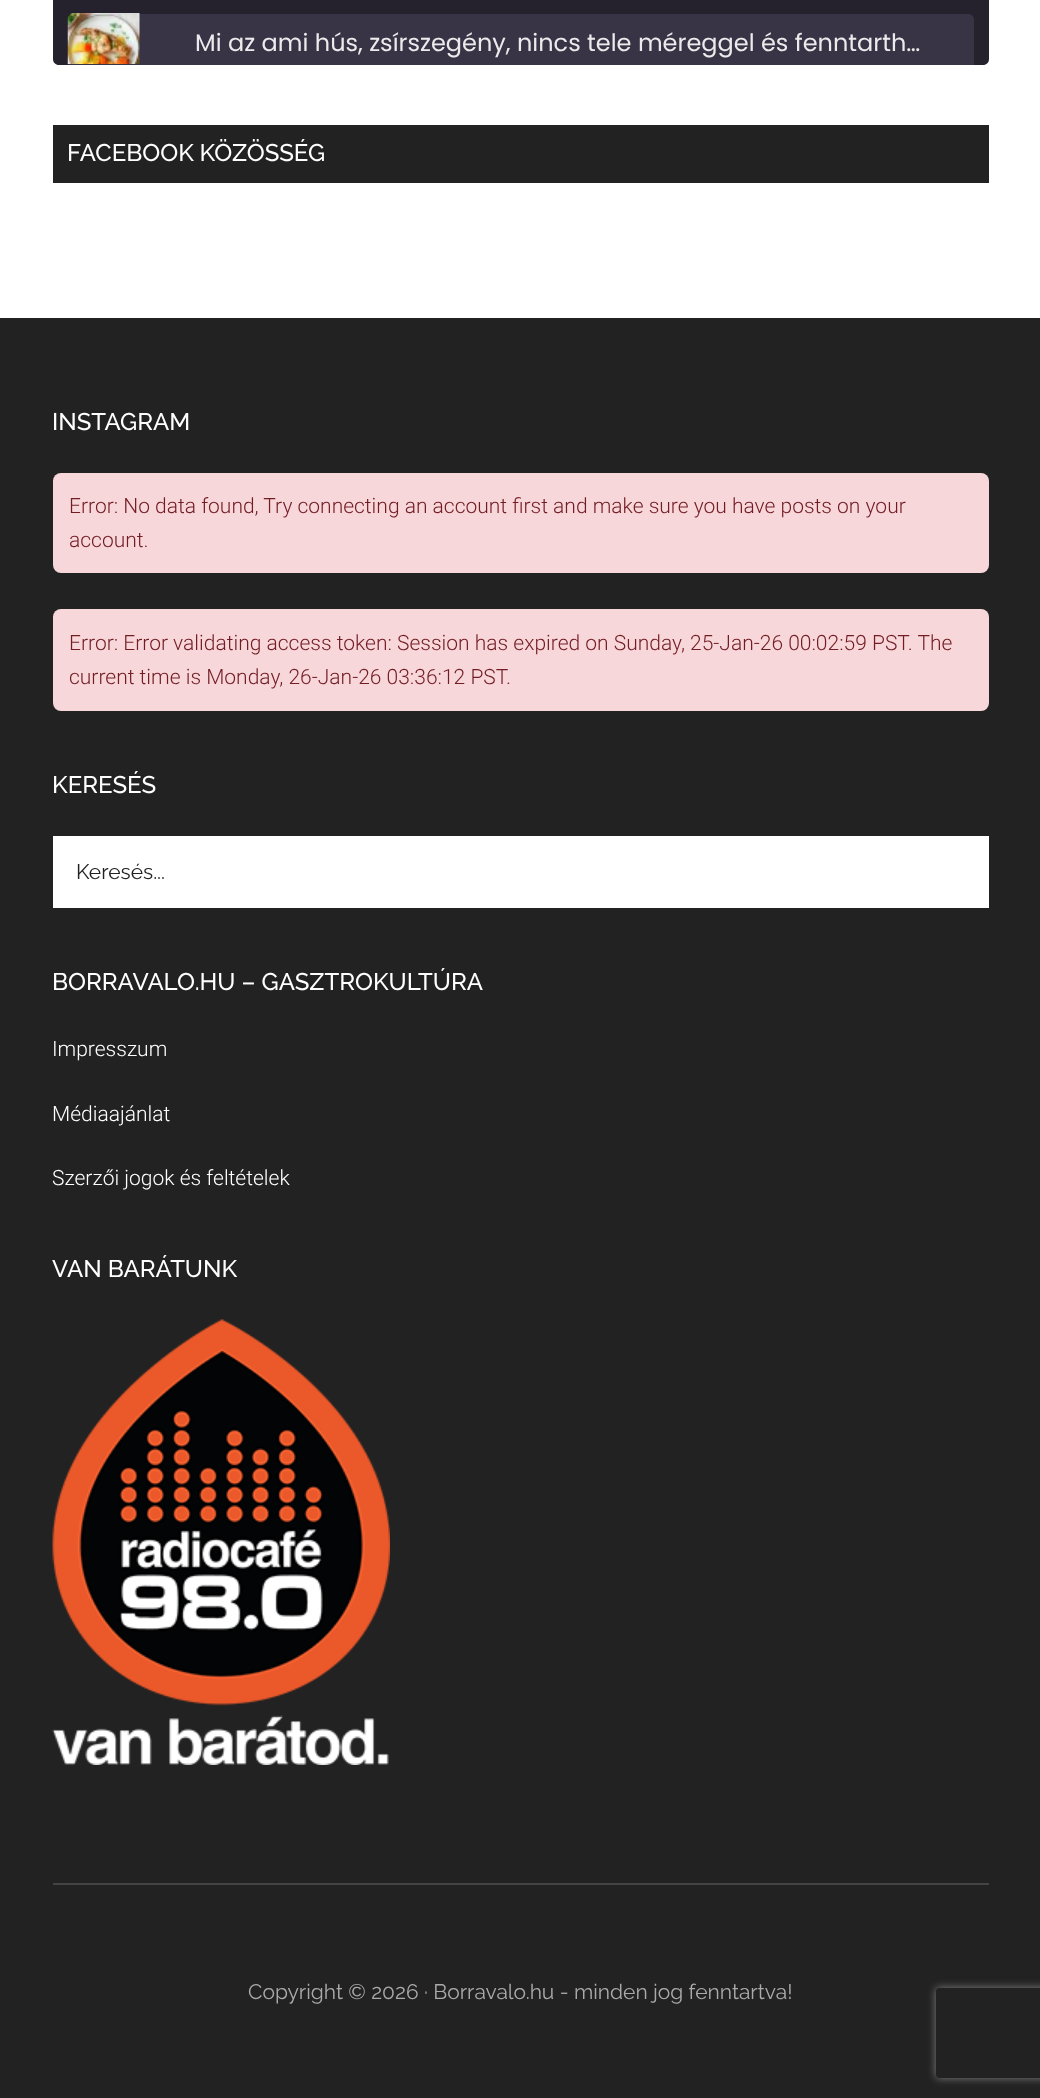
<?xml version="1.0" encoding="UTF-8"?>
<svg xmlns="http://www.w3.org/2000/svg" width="1040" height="2098">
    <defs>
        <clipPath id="clip1"><path d="M 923 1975 H 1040 V 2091 H 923 Z M 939 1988 H 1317 C 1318.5 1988 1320 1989.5 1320 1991 V 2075 C 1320 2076.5 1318.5 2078 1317 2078 H 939 C 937.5 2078 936 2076.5 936 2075 V 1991 C 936 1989.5 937.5 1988 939 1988 Z" clip-rule="evenodd"/></clipPath>
        <filter id="blur1" x="-50%" y="-200%" width="200%" height="500%"><feGaussianBlur stdDeviation="4"/></filter>
    </defs>
    <rect width="100%" height="100%" fill="#FFFFFF"/>
    <path d="M 53 -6 H 989 V 59 C 989 62.5 986.5 65 983 65 H 59 C 55.5 65 53 62.5 53 59 Z" fill="#25222D"/>
    <path d="M 74 14 H 968 C 971.5 14 974 16.5 974 20 V 65 H 68 V 20 C 68 16.5 70.5 14 74 14 Z" fill="#393445"/>
    <image x="67" y="13" width="73" height="51" href="img_01.png"/>
    <text x="195" y="51" font-family="Poppins" font-size="24" fill="#EBEBEC">Mi az ami hús, zsírszegény, nincs tele méreggel és fenntarth…</text>
    <rect x="53" y="125" width="936" height="58" fill="#222222"/>
    <text x="67" y="161" font-family="Raleway" font-size="24" font-weight="500" fill="#FFFFFF">FACEBOOK KÖZÖSSÉG</text>
    <rect x="0" y="318" width="1040" height="1780" fill="#222222"/>
    <text x="52" y="430" font-family="Raleway" font-size="24" font-weight="500" fill="#FFFFFF">INSTAGRAM</text>
    <rect x="53" y="473" width="936" height="100" rx="8" fill="#F8D7DA"/>
    <text font-family="Roboto" font-size="21" font-weight="300" fill="#721C24">
        <tspan x="69" y="513">Error: No data found, Try connecting an account first and make sure you have posts on your</tspan>
        <tspan x="69" y="547">account.</tspan>
    </text>
    <rect x="53" y="609" width="936" height="102" rx="8" fill="#F8D7DA"/>
    <text font-family="Roboto" font-size="21" font-weight="300" fill="#721C24">
        <tspan x="69" y="650">Error: Error validating access token: Session has expired on Sunday, 25-Jan-26 00:02:59 PST. The</tspan>
        <tspan x="69" y="684">current time is Monday, 26-Jan-26 03:36:12 PST.</tspan>
    </text>
    <text x="52" y="793" font-family="Raleway" font-size="24" font-weight="500" fill="#FFFFFF">KERESÉS</text>
    <rect x="53" y="836" width="936" height="72" fill="#FFFFFF"/>
    <text x="76" y="879" font-family="Raleway" font-size="21" fill="#222222">Keresés...</text>
    <text x="52" y="990" font-family="Raleway" font-size="24" font-weight="500" fill="#FFFFFF">BORRAVALO.HU – GASZTROKULTÚRA</text>
    <text x="52" y="1056" font-family="Roboto" font-size="21" font-weight="300" fill="#FFFFFF">Impresszum</text>
    <text x="52" y="1121" font-family="Roboto" font-size="21" font-weight="300" fill="#FFFFFF">Médiaajánlat</text>
    <text x="52" y="1185" font-family="Roboto" font-size="21" font-weight="300" fill="#FFFFFF">Szerzői jogok és feltételek</text>
    <text x="52" y="1277" font-family="Raleway" font-size="24" font-weight="500" fill="#FFFFFF">VAN BARÁTUNK</text>
    <image x="52" y="1319" width="338" height="446" href="img_02.png"/>
    <rect x="53" y="1883" width="936" height="2" fill="#444444"/>
    <text x="248" y="1999" font-family="Raleway" font-size="21" fill="#AAAAAA">Copyright © 2026 · Borravalo.hu - minden jog fenntartva!</text>
    <g clip-path="url(#clip1)">
        <rect x="936" y="1988" width="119" height="90" rx="3" fill="#808080" filter="url(#blur1)"/>
    </g>
</svg>
